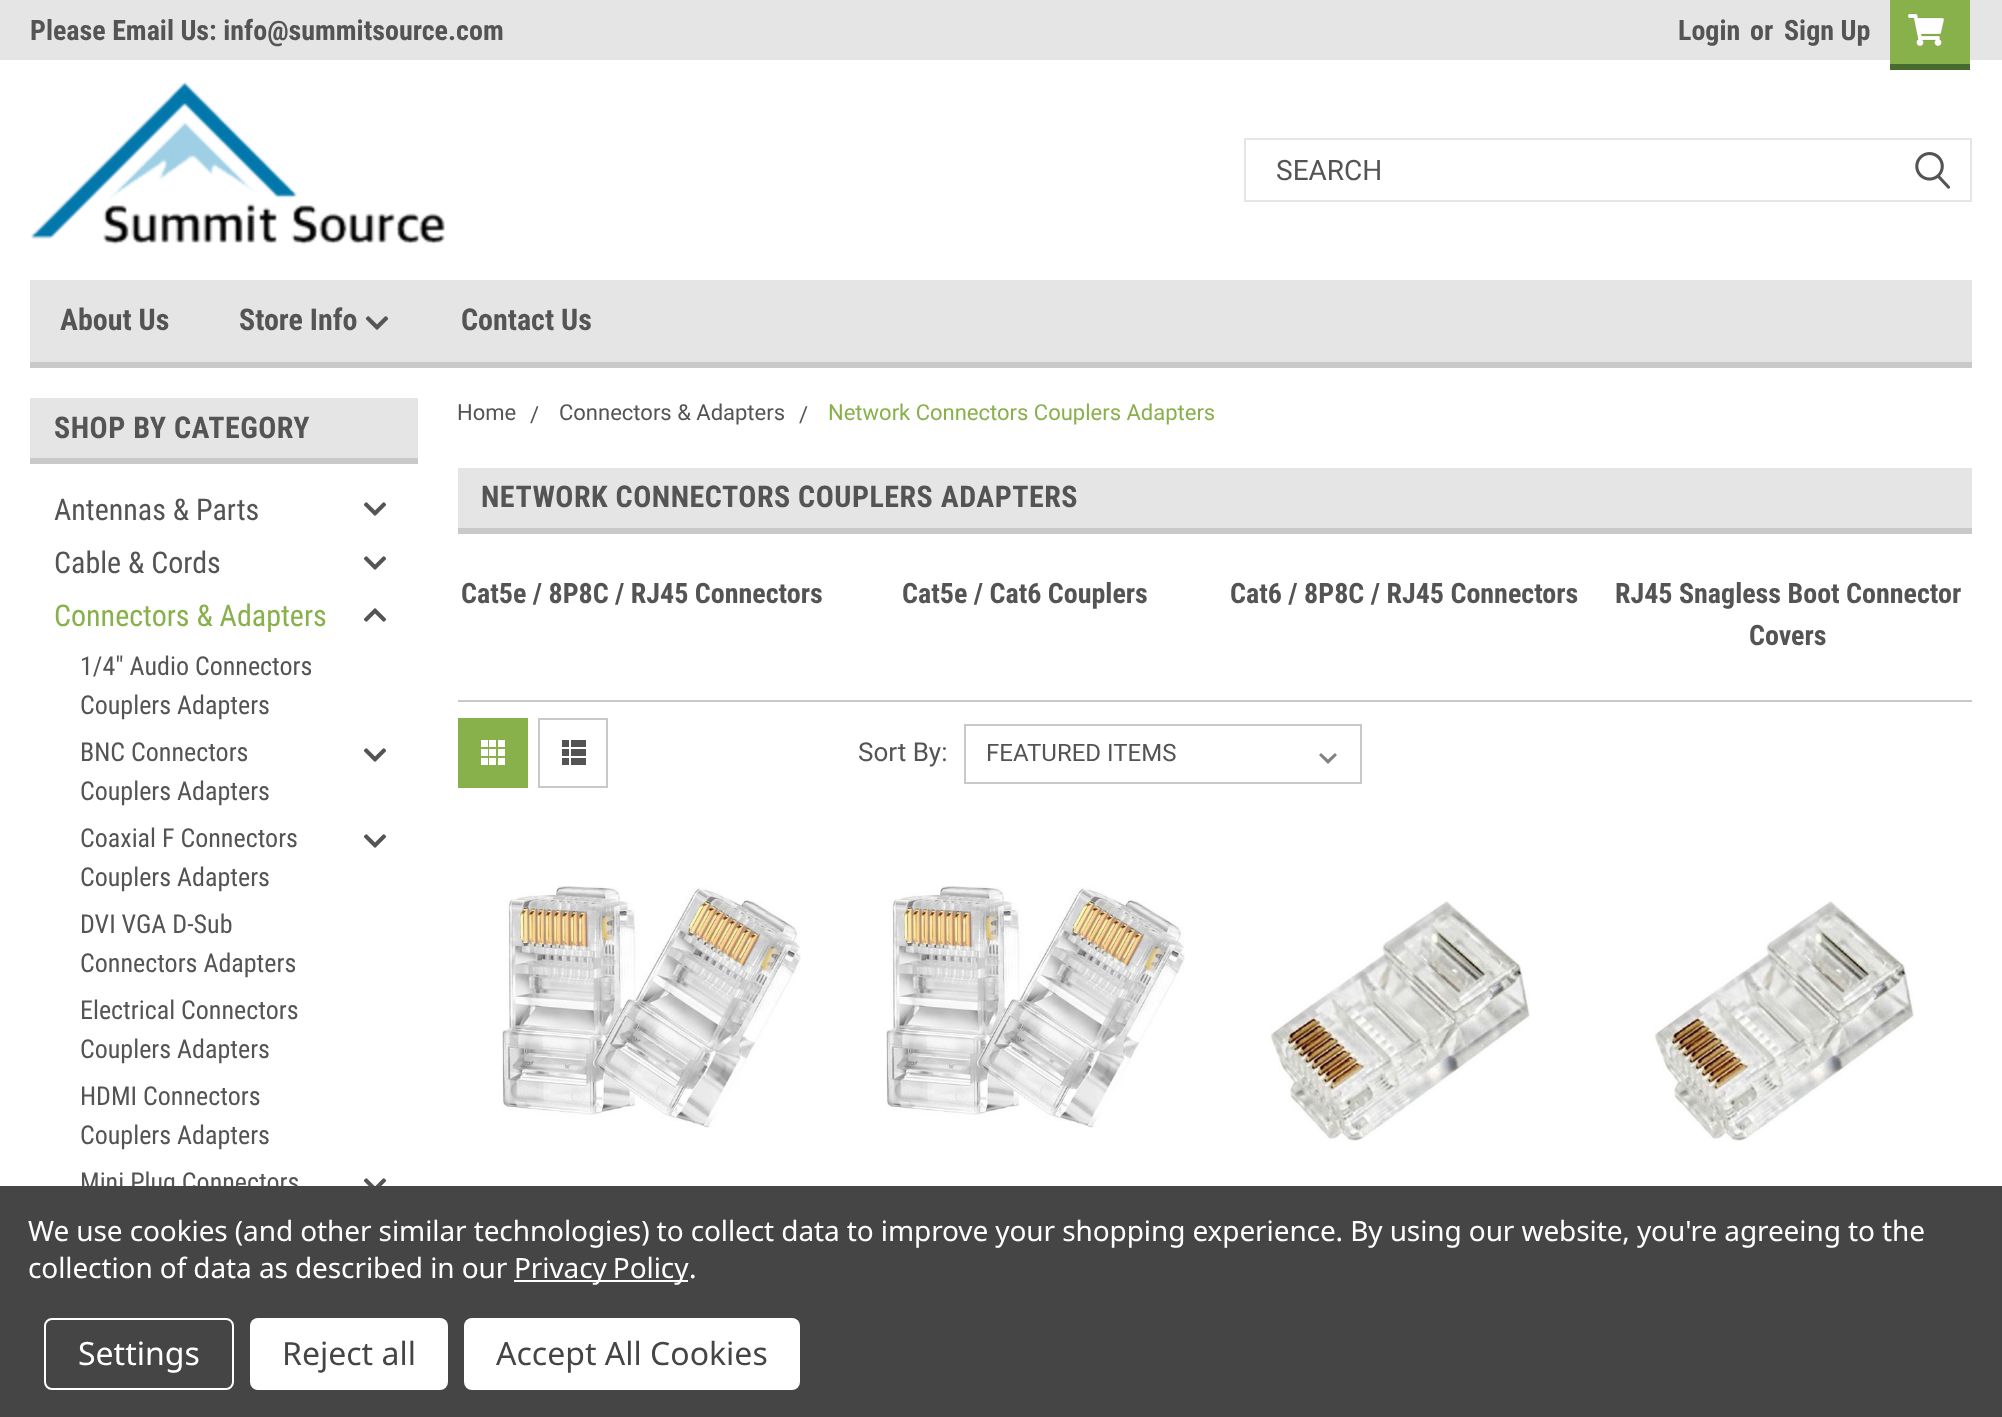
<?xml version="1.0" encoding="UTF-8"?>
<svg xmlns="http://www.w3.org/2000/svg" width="2002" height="1417">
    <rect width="100%" height="100%" fill="#FFFFFF"/>
    <rect x="0" y="0" width="2002" height="60" fill="#E5E5E5"/>
    <text x="30" y="40" font-family="Roboto Condensed" font-size="28" font-weight="700" fill="#545454">Please Email Us: info@summitsource.com</text>
    <text x="1678" y="40" font-family="Roboto Condensed" font-size="28" font-weight="700" fill="#545454">Login</text>
    <text x="1750" y="40" font-family="Roboto Condensed" font-size="28" font-weight="700" fill="#545454">or</text>
    <text x="1784" y="40" font-family="Roboto Condensed" font-size="28" font-weight="700" fill="#545454">Sign Up</text>
    <rect x="1890" y="0" width="80" height="64" fill="#88B04B"/>
    <rect x="1890" y="64" width="80" height="6" fill="#476A30"/>
    <image x="1908" y="13" width="36" height="33" href="img_01.png"/>
    <image x="30" y="82" width="415" height="163" href="img_02.png"/>
    <rect x="1245" y="139" width="726" height="62" fill="none" stroke="#E5E5E5" stroke-width="2"/>
    <text x="1276" y="180" font-family="Roboto" font-size="28" fill="#545454">SEARCH</text>
    <image x="1915" y="152" width="36" height="37" href="img_03.png"/>
    <rect x="30" y="280" width="1942" height="82" fill="#E5E5E5"/>
    <rect x="30" y="362" width="1942" height="6" fill="#C9C9C9"/>
    <text x="60" y="330" font-family="Roboto Condensed" font-size="30" font-weight="700" fill="#545454">About Us</text>
    <text x="239" y="330" font-family="Roboto Condensed" font-size="30" font-weight="700" fill="#545454">Store Info</text>
    <image x="365" y="316" width="24" height="14" href="img_04.png"/>
    <text x="461" y="330" font-family="Roboto Condensed" font-size="30" font-weight="700" fill="#545454">Contact Us</text>
    <rect x="30" y="398" width="388" height="60" fill="#E5E5E5"/>
    <rect x="30" y="458" width="388" height="6" fill="#C9C9C9"/>
    <text x="54" y="438" font-family="Roboto Condensed" font-size="30" font-weight="700" letter-spacing="0.5" fill="#545454">SHOP BY CATEGORY</text>
    <text x="54" y="520" font-family="Roboto Condensed" font-size="30" fill="#545454">Antennas &amp; Parts</text>
    <image x="363" y="502" width="24" height="14" href="img_05.png"/>
    <text x="54" y="573" font-family="Roboto Condensed" font-size="30" fill="#545454">Cable &amp; Cords</text>
    <image x="363" y="556" width="24" height="14" href="img_05.png"/>
    <text x="54" y="626" font-family="Roboto Condensed" font-size="30" fill="#88B04B">Connectors &amp; Adapters</text>
    <image x="363" y="608" width="24" height="14" href="img_06.png"/>
    <text font-family="Roboto Condensed" font-size="26" fill="#545454">
        <tspan x="80" y="675">1/4" Audio Connectors</tspan>
        <tspan x="80" y="714">Couplers Adapters</tspan>
        <tspan x="80" y="761">BNC Connectors</tspan>
        <tspan x="80" y="800">Couplers Adapters</tspan>
    </text>
    <image x="363" y="748" width="24" height="14" href="img_05.png"/>
    <text font-family="Roboto Condensed" font-size="26" fill="#545454">
        <tspan x="80" y="847">Coaxial F Connectors</tspan>
        <tspan x="80" y="886">Couplers Adapters</tspan>
    </text>
    <image x="363" y="834" width="24" height="14" href="img_05.png"/>
    <text font-family="Roboto Condensed" font-size="26" fill="#545454">
        <tspan x="80" y="933">DVI VGA D-Sub</tspan>
        <tspan x="80" y="972">Connectors Adapters</tspan>
        <tspan x="80" y="1019">Electrical Connectors</tspan>
        <tspan x="80" y="1058">Couplers Adapters</tspan>
        <tspan x="80" y="1105">HDMI Connectors</tspan>
        <tspan x="80" y="1144">Couplers Adapters</tspan>
        <tspan x="80" y="1191">Mini Plug Connectors</tspan>
    </text>
    <image x="363" y="1178" width="24" height="8" href="img_07.png"/>
    <text x="457" y="420" font-family="Roboto" font-size="22" fill="#545454">Home</text>
    <text x="530" y="422" font-family="Roboto" font-size="22" fill="#545454">/</text>
    <text x="559" y="420" font-family="Roboto" font-size="22" fill="#545454">Connectors &amp; Adapters</text>
    <text x="799" y="422" font-family="Roboto" font-size="22" fill="#545454">/</text>
    <text x="828" y="420" font-family="Roboto" font-size="22" fill="#88B04B">Network Connectors Couplers Adapters</text>
    <rect x="458" y="468" width="1514" height="60" fill="#E5E5E5"/>
    <rect x="458" y="528" width="1514" height="6" fill="#C9C9C9"/>
    <text x="481" y="507" font-family="Roboto Condensed" font-size="30" font-weight="700" letter-spacing="0.5" fill="#545454">NETWORK CONNECTORS COUPLERS ADAPTERS</text>
    <rect x="458" y="700" width="1514" height="2" fill="#C9C9C9"/>
    <text x="461" y="603" font-family="Roboto Condensed" font-size="28" font-weight="700" fill="#545454">Cat5e / 8P8C / RJ45 Connectors</text>
    <text x="902" y="603" font-family="Roboto Condensed" font-size="28" font-weight="700" fill="#545454">Cat5e / Cat6 Couplers</text>
    <text x="1230" y="603" font-family="Roboto Condensed" font-size="28" font-weight="700" fill="#545454">Cat6 / 8P8C / RJ45 Connectors</text>
    <text x="1615" y="603" font-family="Roboto Condensed" font-size="28" font-weight="700" fill="#545454">RJ45 Snagless Boot Connector</text>
    <text x="1749" y="645" font-family="Roboto Condensed" font-size="28" font-weight="700" fill="#545454">Covers</text>
    <rect x="458" y="718" width="70" height="70" fill="#88B04B"/>
    <image x="481" y="740" width="24" height="25" href="img_08.png"/>
    <rect x="539" y="719" width="68" height="68" fill="none" stroke="#C9C9C9" stroke-width="2"/>
    <image x="562" y="740" width="24" height="25" href="img_09.png"/>
    <text x="858" y="761" font-family="Roboto" font-size="26" fill="#545454">Sort By:</text>
    <path d="M 1335 753 L 1328 759.5 L 1321 753 L 1319 755 L 1328 764 L 1337 755 Z" fill="#828282"/>
    <rect x="965" y="725" width="396" height="58" fill="none" stroke="#C9C9C9" stroke-width="2"/>
    <text x="986" y="761" font-family="Roboto" font-size="24" fill="#545454">FEATURED ITEMS</text>
    <image x="502" y="885" width="299" height="243" href="img_10.png"/>
    <image x="886" y="885" width="299" height="243" href="img_11.png"/>
    <image x="1269" y="901" width="261" height="241" href="img_12.png"/>
    <image x="1653" y="901" width="261" height="241" href="img_12.png"/>
    <rect x="0" y="1186" width="2002" height="231" fill="#454545"/>
    <text font-family="Noto Sans" font-size="28" letter-spacing="-0.1" fill="#FFFFFF">
        <tspan x="28" y="1241">We use cookies (and other similar technologies) to collect data to improve your shopping experience. By using our website, you're agreeing to the</tspan>
        <tspan x="28" y="1278">collection of data as described in our</tspan>
    </text>
    <rect x="514" y="1280" width="174" height="2" fill="#FFFFFF"/>
    <text x="514" y="1278" word-spacing="-1" font-family="Noto Sans" font-size="28" letter-spacing="-0.1" fill="#FFFFFF">Privacy Policy</text>
    <text x="689" y="1278" font-family="Noto Sans" font-size="28" letter-spacing="-0.1" fill="#FFFFFF">.</text>
    <rect x="45" y="1319" width="188" height="70" rx="7" fill="none" stroke="#FFFFFF" stroke-width="2"/>
    <text x="78" y="1365" font-family="Noto Sans" font-size="32" fill="#FFFFFF">Settings</text>
    <rect x="250" y="1318" width="198" height="72" rx="8" fill="#FFFFFF"/>
    <text x="282" y="1365" font-family="Noto Sans" font-size="32" fill="#454545">Reject all</text>
    <rect x="464" y="1318" width="336" height="72" rx="8" fill="#FFFFFF"/>
    <text x="496" y="1365" font-family="Noto Sans" font-size="32" fill="#454545">Accept All Cookies</text>
</svg>
